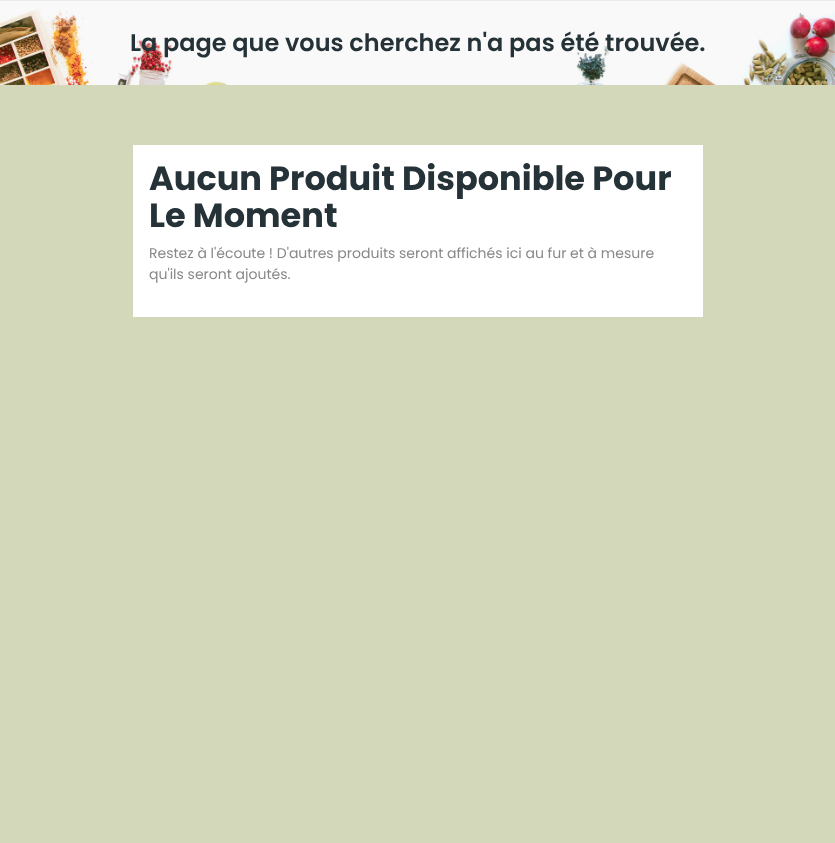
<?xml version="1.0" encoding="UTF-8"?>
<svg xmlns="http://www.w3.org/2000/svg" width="835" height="843">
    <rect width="100%" height="100%" fill="#D3D8BB"/>
    <rect x="0" y="0" width="835" height="1" fill="#EBEBEB"/>
    <image x="0" y="1" width="835" height="84" href="img_01.png"/>
    <text x="130" y="51" font-family="Poppins" font-size="24" font-weight="600" fill="#253237">La page que vous cherchez n'a pas été trouvée.</text>
    <rect x="133" y="145" width="570" height="172" fill="#FFFFFF"/>
    <text font-family="Poppins" font-size="33.6" font-weight="700" fill="#253237">
        <tspan x="149" y="190">Aucun Produit Disponible Pour</tspan>
        <tspan x="149" y="227">Le Moment</tspan>
    </text>
    <text font-family="Poppins" font-size="14" fill="#888888">
        <tspan x="149" y="258">Restez à l'écoute ! D'autres produits seront affichés ici au fur et à mesure</tspan>
        <tspan x="149" y="279">qu'ils seront ajoutés.</tspan>
    </text>
</svg>
